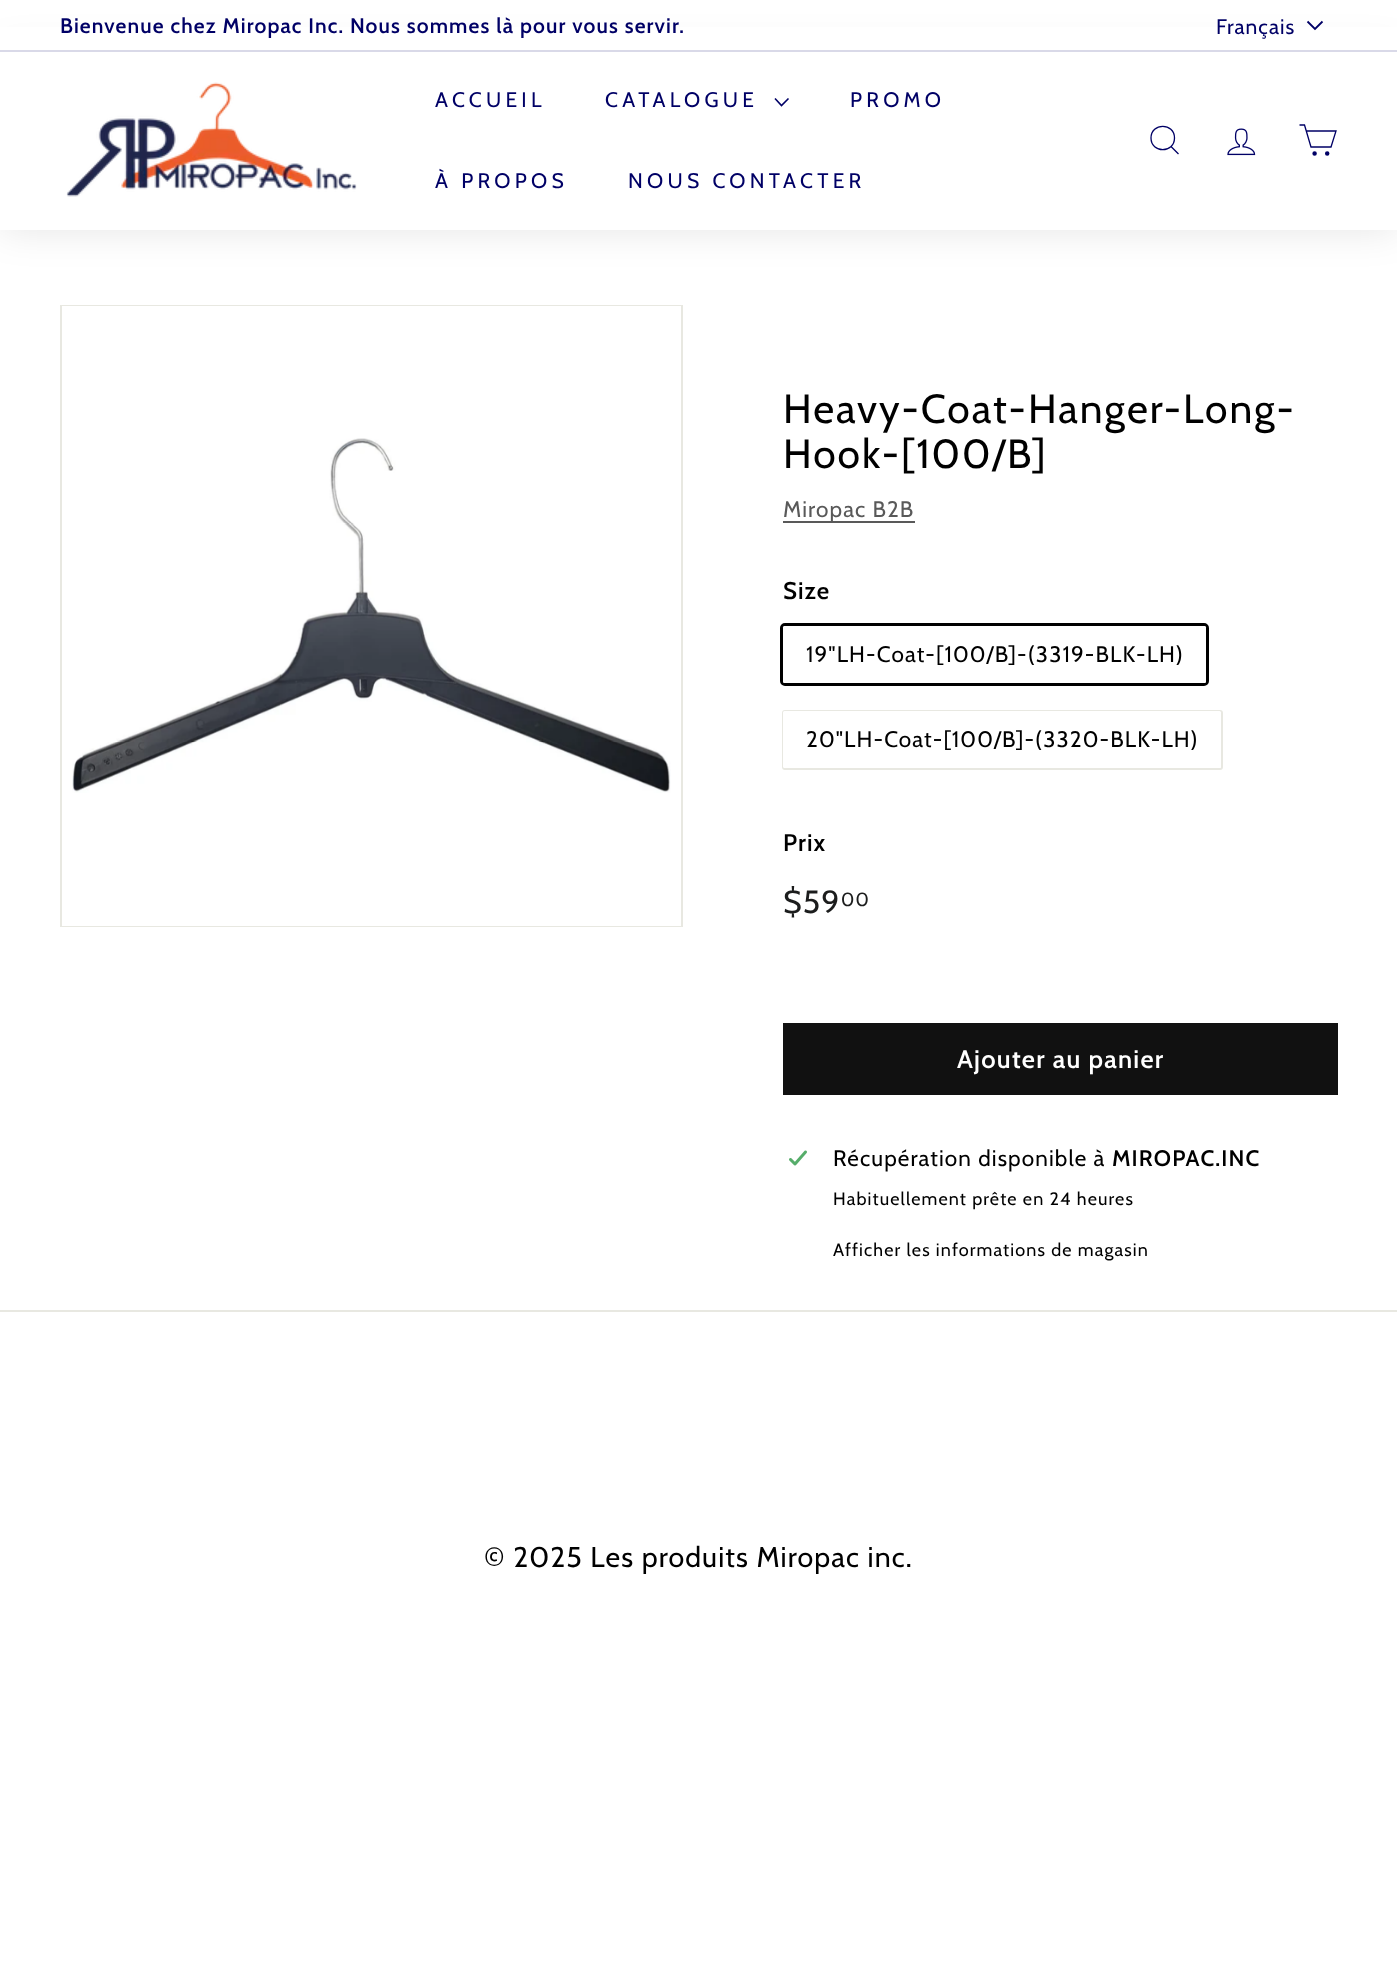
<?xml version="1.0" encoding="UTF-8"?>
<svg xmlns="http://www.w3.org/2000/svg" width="1397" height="1974">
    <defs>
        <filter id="blur1" x="-50%" y="-200%" width="200%" height="500%"><feGaussianBlur stdDeviation="19"/></filter>
    </defs>
    <rect width="100%" height="100%" fill="#FFFFFF"/>
    <rect x="0" y="51" width="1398" height="179" fill="#000000" fill-opacity="0.1" filter="url(#blur1)"/>
    <rect x="0" y="27" width="1397" height="23" fill="#FFFFFF"/>
    <text x="60" y="33" font-family="Cabin" font-size="21" font-weight="600" letter-spacing="1.12" fill="#000066">Bienvenue chez Miropac Inc. Nous sommes là pour vous servir.</text>
    <text x="1216" y="34" font-family="Cabin" font-size="21" letter-spacing="1" fill="#000066">Français</text>
    <path d="M 1307.5 21.5 L 1315 29 L 1322.5 21.5" fill="none" stroke="#000066" stroke-width="1.8"/>
    <rect x="0" y="50" width="1397" height="2" fill="#D9D9E8"/>
    <rect x="0" y="52" width="1397" height="178" fill="#FFFFFF"/>
    <image x="66" y="82" width="291" height="115" href="img_01.png"/>
    <text x="435" y="107" font-family="Cabin" font-size="21" letter-spacing="4.25" fill="#000066">ACCUEIL</text>
    <text x="605" y="107" font-family="Cabin" font-size="21" letter-spacing="4.25" fill="#000066">CATALOGUE</text>
    <path d="M 775 98.5 L 781.5 105.5 L 788.5 98.5" fill="none" stroke="#000066" stroke-width="1.6"/>
    <text x="850" y="107" font-family="Cabin" font-size="21" letter-spacing="4.25" fill="#000066">PROMO</text>
    <text x="435" y="188" font-family="Cabin" font-size="21" letter-spacing="4.25" fill="#000066">À PROPOS</text>
    <text x="628" y="188" font-family="Cabin" font-size="21" letter-spacing="4.25" fill="#000066">NOUS CONTACTER</text>
    <path d="M 1174.5 138 C 1174.5 153.5 1151 153.5 1151 138 C 1151 122.5 1174.5 122.5 1174.5 138 Z M 1178.5 154 L 1171 146.5" fill="none" stroke="#000066" stroke-width="1.3"/>
    <image x="1227" y="128" width="29" height="28" href="img_02.png"/>
    <path d="M 1306.5 131 H 1336 L 1331 147 H 1311 L 1304.5 125 H 1299.5" fill="none" stroke="#000066" stroke-width="1.3"/>
    <circle cx="1314.6" cy="153.5" r="1.3" fill="#000066" stroke="#000066" stroke-width="1.9"/>
    <circle cx="1327.2" cy="153.5" r="1.3" fill="#000066" stroke="#000066" stroke-width="1.9"/>
    <rect x="61" y="306" width="621" height="620" fill="none" stroke="#E8E8E1" stroke-width="2"/>
    <rect x="62" y="306" width="619" height="620" fill="#FFFFFF"/>
    <image x="72" y="438" width="599" height="355" href="img_03.png"/>
    <text font-family="Cabin" font-size="40.75" letter-spacing="2" fill="#000000">
        <tspan x="783" y="423">Heavy-Coat-Hanger-Long-</tspan>
        <tspan x="783" y="468">Hook-[100/B]</tspan>
    </text>
    <rect x="783" y="521" width="132" height="2" fill="#595959"/>
    <text x="783" y="517" font-family="Cabin" font-size="22.5" letter-spacing="1.12" fill="#595959">Miropac B2B</text>
    <text x="783" y="599" font-family="Cabin" font-size="24" font-weight="600" letter-spacing="1.12" fill="#000000">Size</text>
    <rect x="781.5" y="624.5" width="426" height="60" rx="3.5" fill="none" stroke="#000000" stroke-width="3"/>
    <rect x="783" y="626" width="423" height="57" rx="1.5" fill="#FFFFFF"/>
    <text x="806" y="662" font-family="Cabin" font-size="22.5" letter-spacing="1.12" fill="#000000">19"LH-Coat-[100/B]-(3319-BLK-LH)</text>
    <rect x="783" y="711" width="439" height="58" rx="2" fill="none" stroke="#E8E8E1" stroke-width="2"/>
    <rect x="783" y="711" width="438" height="57" rx="1.5" fill="#FFFFFF"/>
    <text x="806" y="747" font-family="Cabin" font-size="22.5" letter-spacing="1.12" fill="#000000">20"LH-Coat-[100/B]-(3320-BLK-LH)</text>
    <text x="783" y="851" font-family="Cabin" font-size="24" font-weight="600" letter-spacing="1.12" fill="#000000">Prix</text>
    <text x="783" y="913" font-family="Cabin" font-size="32" letter-spacing="1.12" fill="#1C1D1D">$59</text>
    <text x="841" y="906" font-family="Cabin" font-size="19" letter-spacing="1.12" fill="#1C1D1D">00</text>
    <rect x="783" y="1023" width="555" height="72" fill="#111111"/>
    <text x="957" y="1068" font-family="Cabin" font-size="25.5" font-weight="600" letter-spacing="1.25" fill="#FFFFFF">Ajouter au panier</text>
    <image x="789" y="1150" width="18" height="16" href="img_04.png"/>
    <text x="833" y="1166" font-family="Cabin" font-size="22.5" letter-spacing="1.12" fill="#000000">Récupération disponible à</text>
    <text x="1112" y="1166" font-family="Cabin" font-size="22.5" font-weight="600" letter-spacing="1.12" fill="#000000">MIROPAC.INC</text>
    <text x="833" y="1205" font-family="Cabin" font-size="18" letter-spacing="1.12" fill="#000000">Habituellement prête en 24 heures</text>
    <text x="833" y="1256" font-family="Cabin" font-size="18" letter-spacing="1.12" fill="#000000">Afficher les informations de magasin</text>
    <rect x="0" y="1310" width="1397" height="2" fill="#E8E8E1"/>
    <text x="484" y="1567" font-family="Cabin" font-size="28.5" letter-spacing="1.12" fill="#000000">© 2025 Les produits Miropac inc.</text>
</svg>
